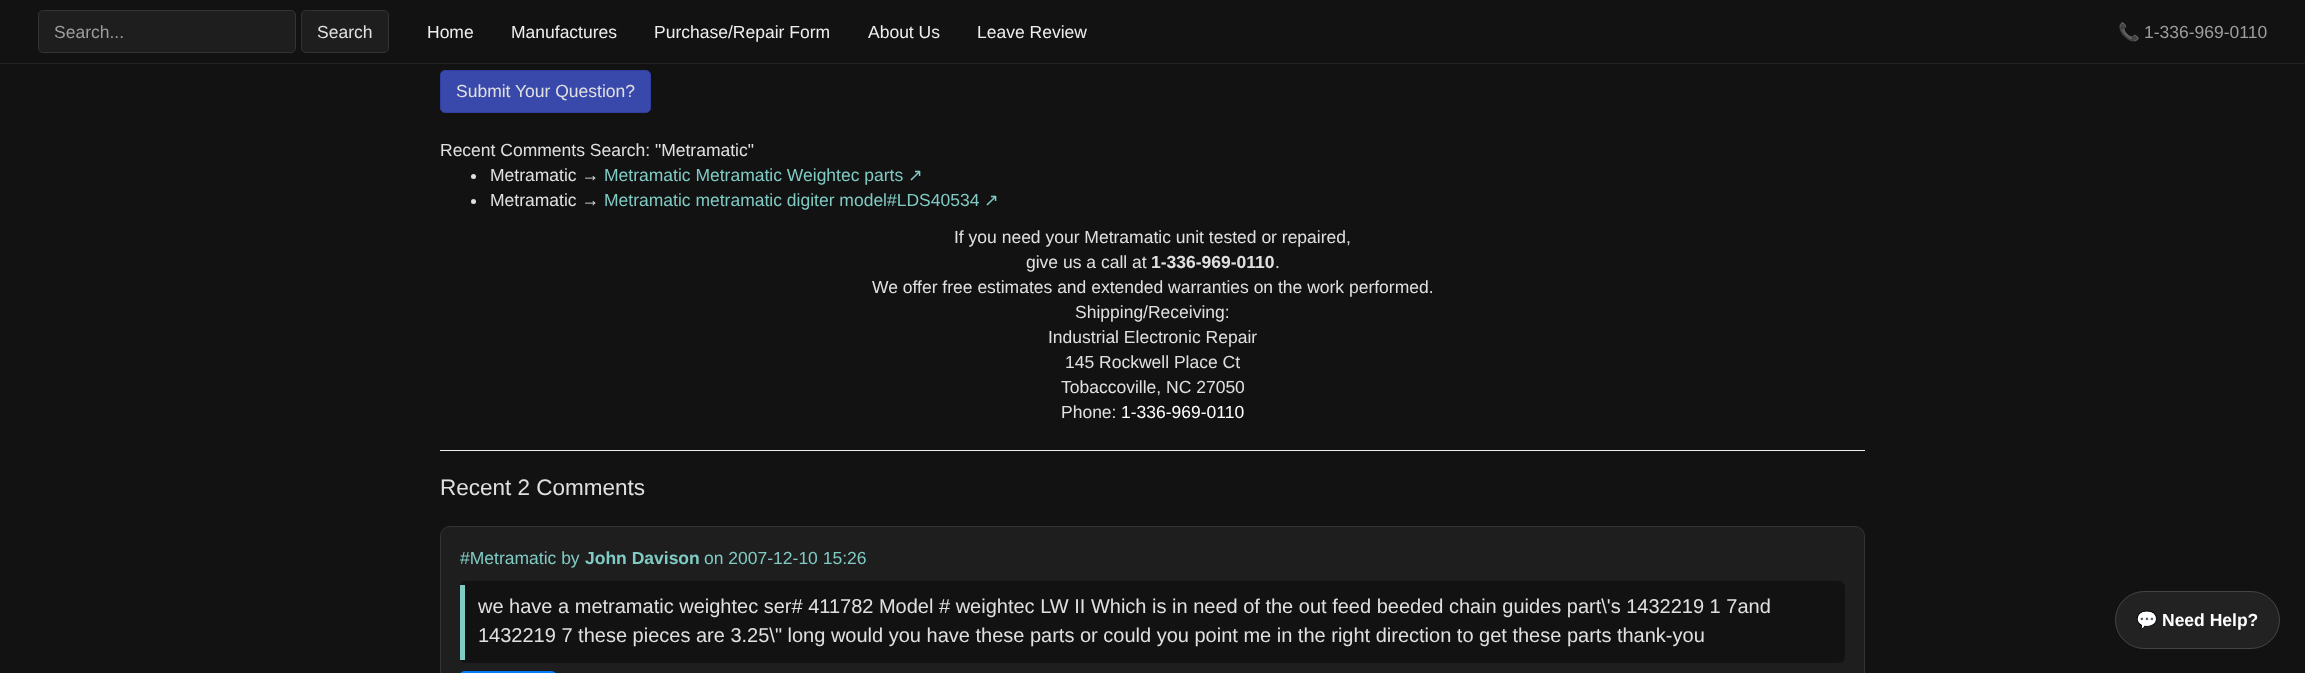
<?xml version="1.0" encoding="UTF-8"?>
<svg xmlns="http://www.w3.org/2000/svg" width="2305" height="673">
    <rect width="100%" height="100%" fill="#121212"/>
    <rect x="0" y="63" width="2305" height="1" fill="#222222"/>
    <rect x="38.5" y="10.5" width="257" height="42" rx="4.5" fill="#1E1E1E" stroke="#333333"/>
    <text x="54" y="38" font-family="Liberation Sans" font-size="17.5" fill="#9D9D9D">Search...</text>
    <rect x="301.5" y="10.5" width="87" height="42" rx="4.5" fill="#1E1E1E" stroke="#333333"/>
    <text x="317" y="38" font-family="Liberation Sans" font-size="17.5" fill="#E0E0E0">Search</text>
    <text x="427" y="38" font-family="Liberation Sans" font-size="17.5" fill="#EEEEEE">Home</text>
    <text x="511" y="38" font-family="Liberation Sans" font-size="17.5" fill="#EEEEEE">Manufactures</text>
    <text x="654" y="38" font-family="Liberation Sans" font-size="17.5" fill="#EEEEEE">Purchase/Repair Form</text>
    <text x="868" y="38" font-family="Liberation Sans" font-size="17.5" fill="#EEEEEE">About Us</text>
    <text x="977" y="38" font-family="Liberation Sans" font-size="17.5" fill="#EEEEEE">Leave Review</text>
    <text x="2118" y="38" font-family="Noto Color Emoji" font-size="17.5" fill="#9D9D9D">📞</text>
    <text x="2144" y="38" font-family="Liberation Sans" font-size="17.5" fill="#9D9D9D">1-336-969-0110</text>
    <rect x="440.5" y="70.5" width="210" height="42" rx="4.5" fill="#3949AB" stroke="#303F9F"/>
    <text x="456" y="97" font-family="Liberation Sans" font-size="17.5" fill="#E0E0E0">Submit Your Question?</text>
    <text x="440" y="156" font-family="Liberation Sans" font-size="17.5" fill="#E0E0E0">Recent Comments Search: "Metramatic"</text>
    <circle cx="473.5" cy="176.5" r="2.5" fill="#E0E0E0"/>
    <text x="490" y="181" font-family="Liberation Sans" font-size="17.5" fill="#E0E0E0">Metramatic →</text>
    <text x="604" y="181" font-family="Liberation Sans" font-size="17.5" fill="#80CBC4">Metramatic Metramatic Weightec parts</text>
    <text x="908" y="181" font-family="DejaVu Sans" font-size="17.5" fill="#80CBC4">↗</text>
    <circle cx="473.5" cy="201.5" r="2.5" fill="#E0E0E0"/>
    <text x="490" y="206" font-family="Liberation Sans" font-size="17.5" fill="#E0E0E0">Metramatic →</text>
    <text x="604" y="206" font-family="Liberation Sans" font-size="17.5" fill="#80CBC4">Metramatic metramatic digiter model#LDS40534</text>
    <text x="984" y="206" font-family="DejaVu Sans" font-size="17.5" fill="#80CBC4">↗</text>
    <text x="954" y="243" font-family="Liberation Sans" font-size="17.5" fill="#E0E0E0">If you need your Metramatic unit tested or repaired,</text>
    <text x="1026" y="268" font-family="Liberation Sans" font-size="17.5" fill="#E0E0E0">give us a call at</text>
    <text x="1151" y="268" font-family="Liberation Sans" font-size="17.5" font-weight="700" fill="#E0E0E0">1-336-969-0110</text>
    <text x="1275" y="268" font-family="Liberation Sans" font-size="17.5" fill="#E0E0E0">.</text>
    <text x="872" y="293" font-family="Liberation Sans" font-size="17.5" fill="#E0E0E0">We offer free estimates and extended warranties on the work performed.</text>
    <text x="1075" y="318" font-family="Liberation Sans" font-size="17.5" fill="#E0E0E0">Shipping/Receiving:</text>
    <text x="1048" y="343" font-family="Liberation Sans" font-size="17.5" fill="#E0E0E0">Industrial Electronic Repair</text>
    <text x="1065" y="368" font-family="Liberation Sans" font-size="17.5" fill="#E0E0E0">145 Rockwell Place Ct</text>
    <text font-family="Liberation Sans" font-size="17.5" fill="#E0E0E0">
        <tspan x="1061" y="393">Tobaccoville, NC 27050</tspan>
        <tspan x="1061" y="418">Phone:</tspan>
    </text>
    <text x="1121" y="418" font-family="Liberation Sans" font-size="17.5" fill="#FFFFFF">1-336-969-0110</text>
    <rect x="440" y="450" width="1425" height="1" fill="#EEEEEE"/>
    <text x="440" y="495" font-family="Liberation Sans" font-size="22.5" fill="#E0E0E0">Recent 2 Comments</text>
    <rect x="440.5" y="526.5" width="1424" height="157" rx="9.5" fill="#1E1E1E" stroke="#333333"/>
    <text x="460" y="564" font-family="Liberation Sans" font-size="17.5" fill="#80CBC4">#Metramatic by</text>
    <text x="585" y="564" font-family="Liberation Sans" font-size="17.5" font-weight="700" fill="#80CBC4">John Davison</text>
    <text x="704" y="564" font-family="Liberation Sans" font-size="17.5" fill="#80CBC4">on 2007-12-10 15:26</text>
    <rect x="460" y="581" width="1385" height="82" rx="6" fill="#121212"/>
    <rect x="460" y="585" width="5" height="75" fill="#80CBC4"/>
    <text font-family="Liberation Sans" font-size="20" fill="#E0E0E0">
        <tspan x="478" y="613">we have a metramatic weightec ser# 411782 Model # weightec LW II Which is in need of the out feed beeded chain guides part\'s 1432219 1 7and</tspan>
        <tspan x="478" y="642">1432219 7 these pieces are 3.25\" long would you have these parts or could you point me in the right direction to get these parts thank-you</tspan>
    </text>
    <rect x="460" y="671" width="96" height="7" rx="5" fill="#007BFF"/>
    <rect x="2115.5" y="591.5" width="164" height="57" rx="28.5" fill="#222222" stroke="#444444"/>
    <text x="2136" y="626" font-family="Noto Color Emoji" font-size="17.5" font-weight="700" fill="#FFFFFF">💬</text>
    <text x="2162" y="626" font-family="Liberation Sans" font-size="17.5" font-weight="700" fill="#FFFFFF">Need Help?</text>
</svg>
